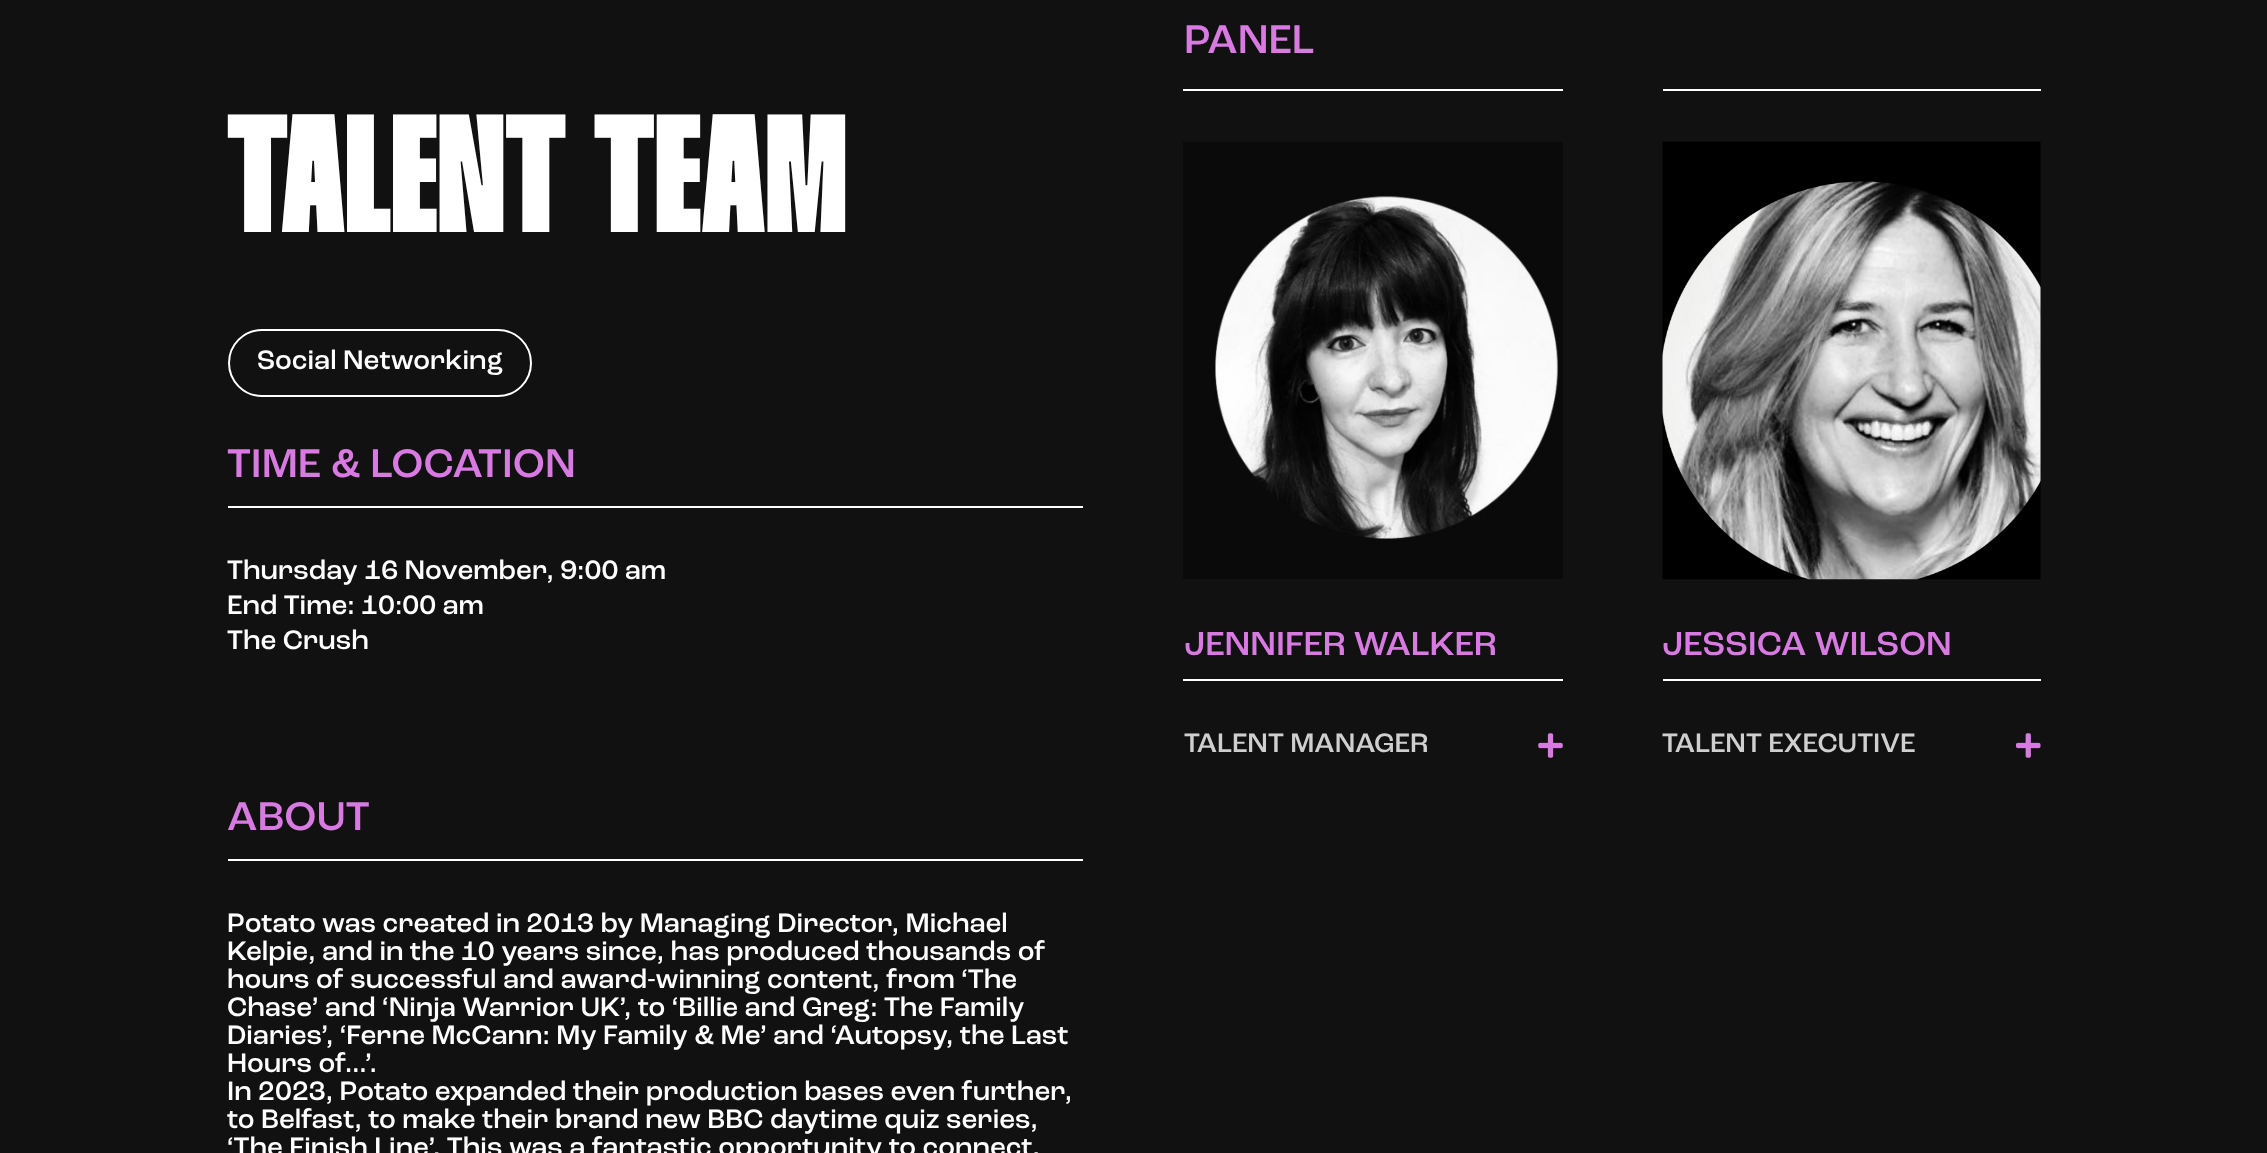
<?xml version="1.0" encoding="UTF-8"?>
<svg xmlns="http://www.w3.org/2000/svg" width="2267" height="1153">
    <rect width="100%" height="100%" fill="#111111"/>
    <text x="227" y="232" font-family="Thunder" font-size="168" font-weight="800" fill="#FFFFFF">TALENT TEAM</text>
    <rect x="229" y="330" width="302" height="66" rx="33" fill="none" stroke="#FFFFFF" stroke-width="2"/>
    <text x="257" y="369" font-family="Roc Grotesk" font-size="28" font-weight="500" fill="#FFFFFF">Social Networking</text>
    <rect x="228" y="506" width="855" height="2" fill="#FFFFFF"/>
    <text x="227" y="477" font-family="Roc Grotesk" font-size="42" font-weight="500" fill="#D97AE3">TIME &amp; LOCATION</text>
    <text font-family="Roc Grotesk" font-size="28" font-weight="500" fill="#FFFFFF">
        <tspan x="227" y="579">Thursday 16 November, 9:00 am</tspan>
        <tspan x="227" y="614">End Time: 10:00 am</tspan>
        <tspan x="227" y="649">The Crush</tspan>
    </text>
    <rect x="228" y="859" width="855" height="2" fill="#FFFFFF"/>
    <text x="227" y="830" font-family="Roc Grotesk" font-size="42" font-weight="500" fill="#D97AE3">ABOUT</text>
    <text font-family="Roc Grotesk" font-size="28" font-weight="500" fill="#FFFFFF">
        <tspan x="227" y="932">Potato was created in 2013 by Managing Director, Michael</tspan>
        <tspan x="227" y="960">Kelpie, and in the 10 years since, has produced thousands of</tspan>
        <tspan x="227" y="988">hours of successful and award-winning content, from ‘The</tspan>
        <tspan x="227" y="1016">Chase’ and ‘Ninja Warrior UK’, to ‘Billie and Greg: The Family</tspan>
        <tspan x="227" y="1044">Diaries’, ‘Ferne McCann: My Family &amp; Me’ and ‘Autopsy, the Last</tspan>
        <tspan x="227" y="1072">Hours of…’.</tspan>
        <tspan x="227" y="1100">In 2023, Potato expanded their production bases even further,</tspan>
        <tspan x="227" y="1128">to Belfast, to make their brand new BBC daytime quiz series,</tspan>
        <tspan x="227" y="1156">‘The Finish Line’. This was a fantastic opportunity to connect,</tspan>
    </text>
    <rect x="1183" y="89" width="380" height="2" fill="#FFFFFF"/>
    <text x="1184" y="53" font-family="Roc Grotesk" font-size="42" font-weight="500" fill="#D97AE3">PANEL</text>
    <image x="1183" y="142" width="380" height="437" href="img_01.png"/>
    <rect x="1183" y="679" width="380" height="2" fill="#FFFFFF"/>
    <text x="1184" y="655" font-family="Roc Grotesk" font-size="35" font-weight="500" fill="#D97AE3">JENNIFER WALKER</text>
    <text x="1184" y="752" font-family="Roc Grotesk" font-size="28" font-weight="500" fill="#CFCFCF">TALENT MANAGER</text>
    <image x="1538" y="733" width="25" height="25" href="img_02.png"/>
    <rect x="1663" y="89" width="378" height="2" fill="#FFFFFF"/>
    <image x="1662" y="141" width="379" height="439" href="img_03.png"/>
    <rect x="1663" y="679" width="378" height="2" fill="#FFFFFF"/>
    <text x="1662" y="655" font-family="Roc Grotesk" font-size="35" font-weight="500" fill="#D97AE3">JESSICA WILSON</text>
    <text x="1662" y="752" font-family="Roc Grotesk" font-size="28" font-weight="500" fill="#CFCFCF">TALENT EXECUTIVE</text>
    <image x="2016" y="733" width="25" height="25" href="img_04.png"/>
</svg>
